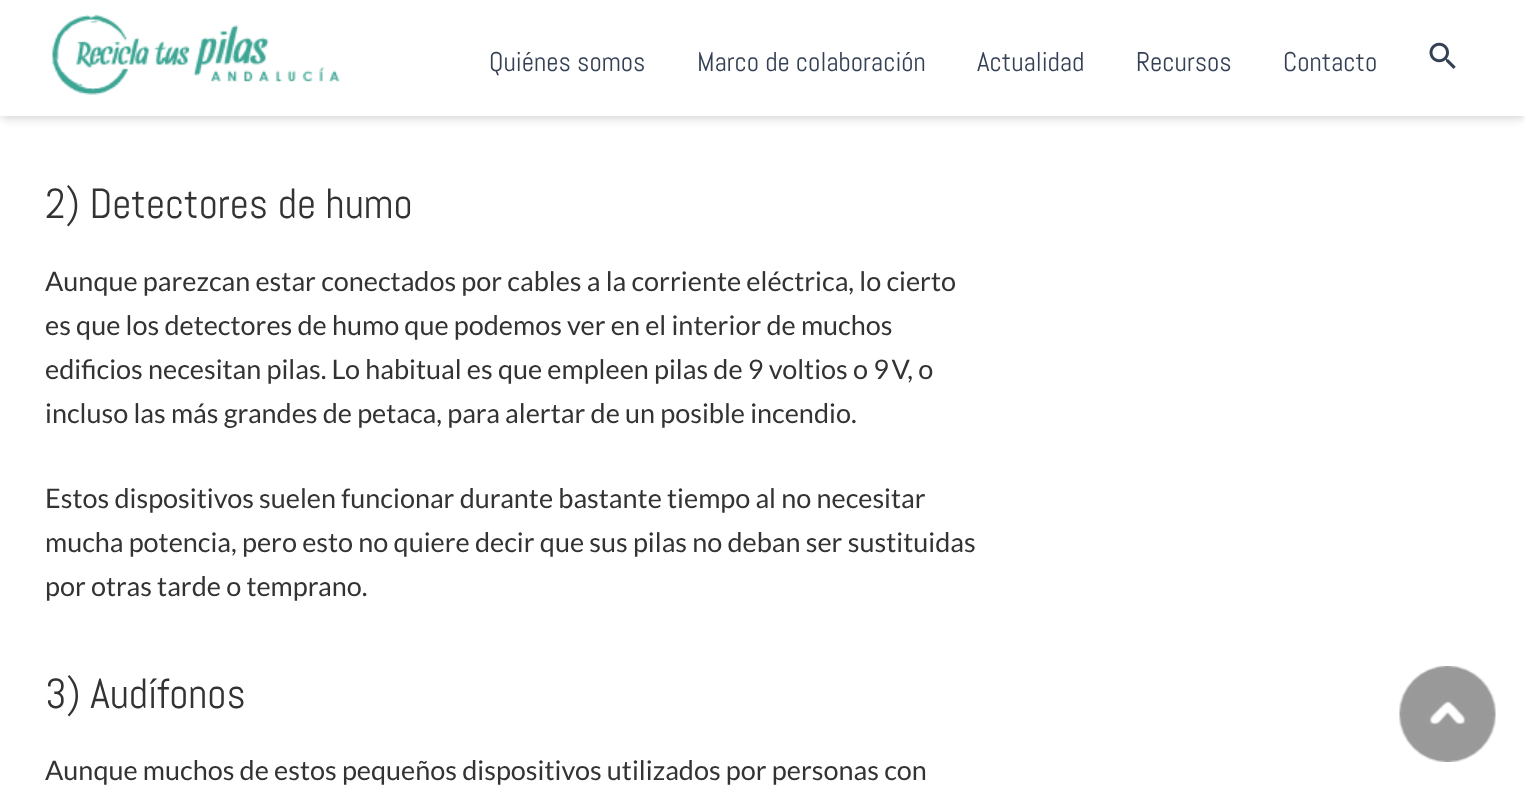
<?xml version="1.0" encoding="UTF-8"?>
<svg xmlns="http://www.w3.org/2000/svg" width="1525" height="791">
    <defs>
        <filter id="blur1" x="-50%" y="-200%" width="200%" height="500%"><feGaussianBlur stdDeviation="3"/></filter>
        <filter id="blur2" x="-50%" y="-200%" width="200%" height="500%"><feGaussianBlur stdDeviation="4.5"/></filter>
    </defs>
    <rect width="100%" height="100%" fill="#FFFFFF"/>
    <rect x="2" y="5" width="1522" height="112" fill="#000000" fill-opacity="0.06" filter="url(#blur1)"/>
    <rect x="2" y="8" width="1522" height="112" fill="#000000" fill-opacity="0.1" filter="url(#blur2)"/>
    <rect x="0" y="1" width="1525" height="115" fill="#FFFFFF"/>
    <image x="52" y="14" width="288" height="81" href="img_01.png"/>
    <text x="489" y="71" font-family="Abel" font-size="27" fill="#344154">Quiénes somos</text>
    <text x="697" y="71" font-family="Abel" font-size="27" fill="#344154">Marco de colaboración</text>
    <text x="977" y="71" font-family="Abel" font-size="27" fill="#344154">Actualidad</text>
    <text x="1136" y="71" font-family="Abel" font-size="27" fill="#344154">Recursos</text>
    <text x="1283" y="71" font-family="Abel" font-size="27" fill="#344154">Contacto</text>
    <image x="1429" y="42" width="27" height="27" href="img_02.png"/>
    <text x="45" y="218" font-family="Abel" font-size="42" fill="#333333">2) Detectores de humo</text>
    <text font-family="Lato" font-size="27" fill="#333333">
        <tspan x="45" y="291">Aunque parezcan estar conectados por cables a la corriente eléctrica, lo cierto</tspan>
        <tspan x="45" y="335">es que los detectores de humo que podemos ver en el interior de muchos</tspan>
        <tspan x="45" y="379">edificios necesitan pilas. Lo habitual es que empleen pilas de 9 voltios o 9 V, o</tspan>
        <tspan x="45" y="423">incluso las más grandes de petaca, para alertar de un posible incendio.</tspan>
    </text>
    <text font-family="Lato" font-size="27" fill="#333333">
        <tspan x="45" y="508">Estos dispositivos suelen funcionar durante bastante tiempo al no necesitar</tspan>
        <tspan x="45" y="552">mucha potencia, pero esto no quiere decir que sus pilas no deban ser sustituidas</tspan>
        <tspan x="45" y="596">por otras tarde o temprano.</tspan>
    </text>
    <text x="45" y="708" font-family="Abel" font-size="42" fill="#333333">3) Audífonos</text>
    <text x="45" y="780" font-family="Lato" font-size="27" fill="#333333">Aunque muchos de estos pequeños dispositivos utilizados por personas con</text>
    <image x="1399" y="666" width="97" height="96" href="img_03.png"/>
</svg>
